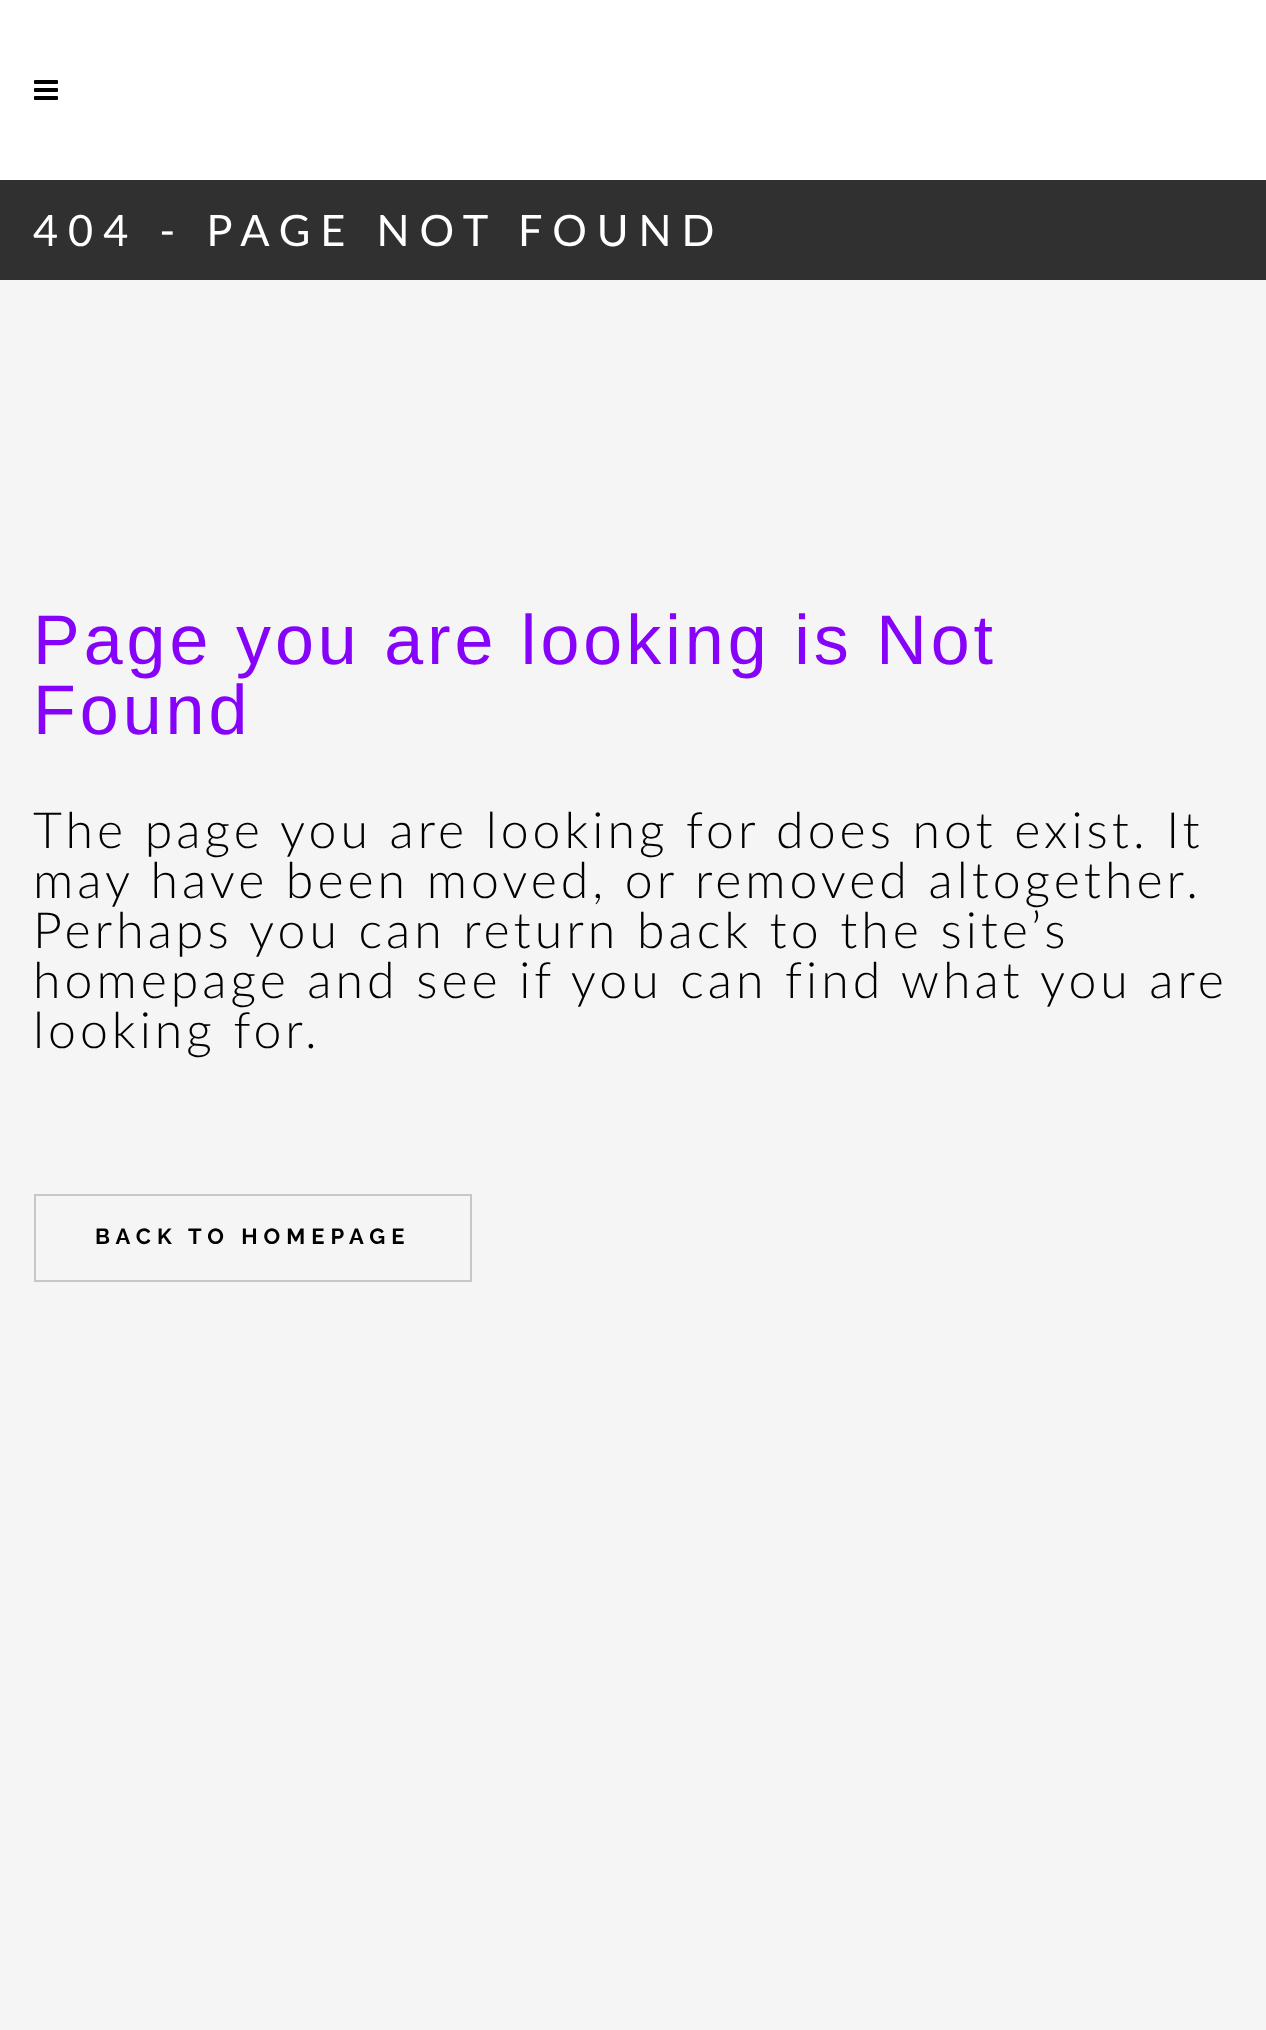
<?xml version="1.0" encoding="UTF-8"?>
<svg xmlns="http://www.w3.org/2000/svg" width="1266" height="2030">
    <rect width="100%" height="100%" fill="#F5F5F5"/>
    <rect x="0" y="0" width="1266" height="180" fill="#FFFFFF"/>
    <image x="34" y="80" width="24" height="20" href="img_01.png"/>
    <rect x="0" y="180" width="1266" height="100" fill="#303030"/>
    <text x="33" y="246" font-family="Lato" font-size="43.25" letter-spacing="10" fill="#FFFFFF">404 - PAGE NOT FOUND</text>
    <text font-family="Liberation Sans" font-size="70" letter-spacing="4" fill="#8602F9">
        <tspan x="33" y="664">Page you are looking is Not</tspan>
        <tspan x="33" y="734">Found</tspan>
    </text>
    <text font-family="Lato" font-size="50" font-weight="300" letter-spacing="4" fill="#000000">
        <tspan x="33" y="848">The page you are looking for does not exist. It</tspan>
        <tspan x="33" y="898">may have been moved, or removed altogether.</tspan>
        <tspan x="33" y="948">Perhaps you can return back to the site’s</tspan>
        <tspan x="33" y="998">homepage and see if you can find what you are</tspan>
        <tspan x="33" y="1048">looking for.</tspan>
    </text>
    <rect x="35" y="1195" width="436" height="86" fill="none" stroke="#C7C7C7" stroke-width="2"/>
    <text x="95" y="1244" font-family="Raleway" font-size="22" font-weight="700" letter-spacing="6" fill="#000000">BACK TO HOMEPAGE</text>
</svg>
